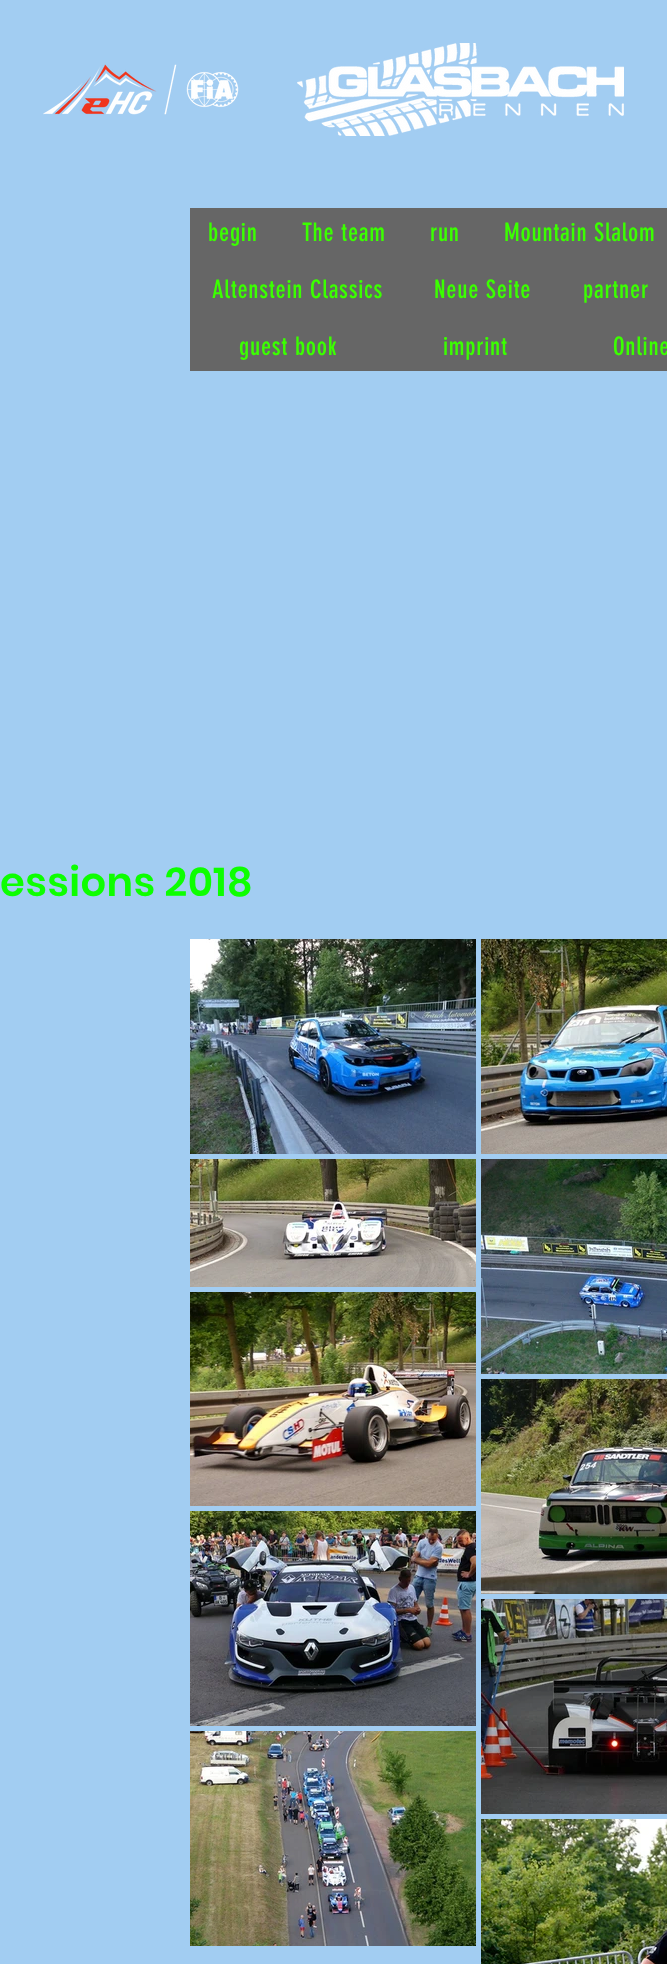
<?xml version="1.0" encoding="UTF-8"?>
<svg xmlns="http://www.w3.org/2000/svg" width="667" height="1964">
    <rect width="100%" height="100%" fill="#A2CDF2"/>
    <image x="43" y="64" width="196" height="51" href="img_01.png"/>
    <image x="297" y="43" width="327" height="93" href="img_02.png"/>
    <rect x="190" y="208" width="477" height="163" fill="#666666"/>
    <text x="208" y="241" font-family="'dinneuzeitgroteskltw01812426'" font-size="25" letter-spacing="0.75" fill="#3BFF00">begin</text>
    <text x="302" y="241" font-family="'dinneuzeitgroteskltw01812426'" font-size="25" letter-spacing="0.75" fill="#3BFF00">The team</text>
    <text x="430" y="241" font-family="'dinneuzeitgroteskltw01812426'" font-size="25" letter-spacing="0.75" fill="#3BFF00">run</text>
    <text x="504" y="241" font-family="'dinneuzeitgroteskltw01812426'" font-size="25" letter-spacing="0.75" fill="#3BFF00">Mountain Slalom</text>
    <text x="212" y="298" font-family="'dinneuzeitgroteskltw01812426'" font-size="25" letter-spacing="0.75" fill="#3BFF00">Altenstein Classics</text>
    <text x="434" y="298" font-family="'dinneuzeitgroteskltw01812426'" font-size="25" letter-spacing="0.75" fill="#3BFF00">Neue Seite</text>
    <text x="583" y="298" font-family="'dinneuzeitgroteskltw01812426'" font-size="25" letter-spacing="0.75" fill="#3BFF00">partner</text>
    <text x="239" y="355" font-family="'dinneuzeitgroteskltw01812426'" font-size="25" letter-spacing="0.75" fill="#3BFF00">guest book</text>
    <text x="443" y="355" font-family="'dinneuzeitgroteskltw01812426'" font-size="25" letter-spacing="0.75" fill="#3BFF00">imprint</text>
    <text x="613" y="355" font-family="'dinneuzeitgroteskltw01812426'" font-size="25" letter-spacing="0.75" fill="#3BFF00">Online</text>
    <text x="0" y="896" font-family="Poppins" font-size="40" font-weight="600" letter-spacing="0.4" fill="#0DFF00">essions 2018</text>
    <image x="190" y="939" width="286" height="215" href="img_03.png"/>
    <image x="481" y="939" width="186" height="215" href="img_04.png"/>
    <image x="190" y="1159" width="286" height="128" href="img_05.png"/>
    <image x="481" y="1159" width="186" height="215" href="img_06.png"/>
    <image x="190" y="1292" width="286" height="214" href="img_07.png"/>
    <image x="481" y="1379" width="186" height="215" href="img_08.png"/>
    <image x="190" y="1511" width="286" height="215" href="img_09.png"/>
    <image x="481" y="1599" width="186" height="215" href="img_10.png"/>
    <image x="190" y="1731" width="286" height="215" href="img_11.png"/>
    <image x="481" y="1819" width="186" height="145" href="img_12.png"/>
</svg>
